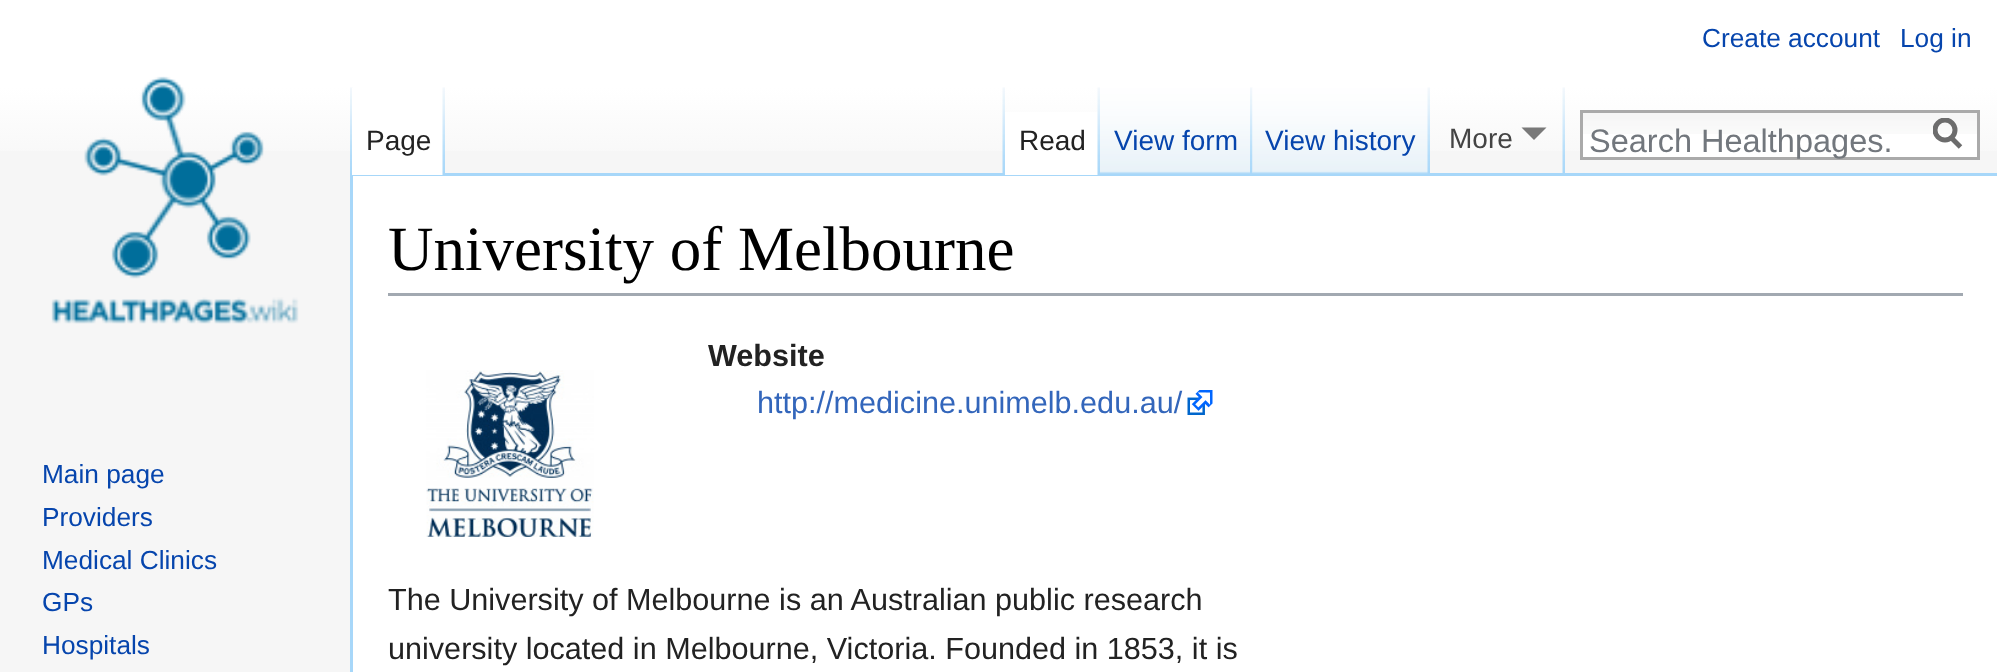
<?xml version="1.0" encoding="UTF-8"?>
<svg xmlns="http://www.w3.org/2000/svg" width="1997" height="672">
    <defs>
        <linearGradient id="g1" gradientUnits="userSpaceOnUse" x1="999" y1="0" x2="999" y2="175"><stop offset="0.5" stop-color="#FFFFFF"/><stop offset="1" stop-color="#F6F6F6"/></linearGradient>
        <clipPath id="clip1"><rect x="1933" y="118" width="30" height="32"/></clipPath>
    </defs>
    <rect width="100%" height="100%" fill="#F6F6F6"/>
    <rect x="0" y="0" width="1997" height="151" fill="url(#g1)"/>
    <text x="1702" y="47" font-family="Liberation Sans" font-size="26.25" fill="#0645AD">Create account</text>
    <text x="1900" y="47" font-family="Liberation Sans" font-size="26.25" fill="#0645AD">Log in</text>
    <image x="350" y="87" width="3" height="86" href="img_01.png"/>
    <image x="442" y="87" width="3" height="1" href="img_02.png"/>
    <rect x="350" y="173" width="1647" height="3" fill="#A7D7F9"/>
    <rect x="350" y="173" width="3" height="499" fill="#A7D7F9"/>
    <rect x="352" y="88" width="91" height="87" fill="#FFFFFF"/>
    <image x="442" y="88" width="3" height="87" href="img_03.png"/>
    <text x="366" y="150" font-family="Liberation Sans" font-size="28" fill="#222222">Page</text>
    <image x="1002" y="87" width="3" height="86" href="img_04.png"/>
    <image x="1427" y="87" width="3" height="1" href="img_02.png"/>
    <rect x="1005" y="112" width="93" height="63" fill="#FFFFFF"/>
    <image x="1097" y="87" width="3" height="88" href="img_05.png"/>
    <text x="1019" y="150" font-family="Liberation Sans" font-size="28" fill="#222222">Read</text>
    <image x="1100" y="88" width="153" height="87" href="img_06.png"/>
    <image x="1250" y="87" width="3" height="88" href="img_07.png"/>
    <text x="1114" y="150" font-family="Liberation Sans" font-size="28" fill="#0645AD">View form</text>
    <image x="1252" y="88" width="178" height="87" href="img_08.png"/>
    <image x="1427" y="88" width="3" height="86" href="img_09.png"/>
    <text x="1265" y="150" font-family="Liberation Sans" font-size="28" fill="#0645AD">View history</text>
    <image x="1562" y="87" width="3" height="86" href="img_04.png"/>
    <path d="M 1546.5 127.5 L 1534 140 L 1521.5 127.5 Z" fill="#797979"/>
    <text x="1449" y="148" font-family="Liberation Sans" font-size="28" fill="#444444">More</text>
    <rect x="1583" y="134" width="394" height="23" fill="#FFFFFF"/>
    <image x="1583" y="113" width="394" height="21" href="img_10.png"/>
    <rect x="1581.5" y="111.5" width="397" height="47" fill="none" stroke="#AAAAAA" stroke-width="3"/>
    <text x="1589" y="152" font-family="Liberation Sans" font-size="32.5" fill="#72777D">Search Healthpages.</text>
    <path d="M 1960.5 147 L 1950.5 137" fill="none" stroke="#6C6C6C" stroke-width="5"/>
    <g clip-path="url(#clip1)">
        <circle cx="1945" cy="130" r="10" fill="none" stroke="#6C6C6C" stroke-width="5"/>
    </g>
    <image x="51" y="76" width="248" height="248" href="img_11.png"/>
    <text font-family="Liberation Sans" font-size="26.25" fill="#0645AD">
        <tspan x="42" y="483">Main page</tspan>
        <tspan x="42" y="526">Providers</tspan>
        <tspan x="42" y="569">Medical Clinics</tspan>
        <tspan x="42" y="611">GPs</tspan>
        <tspan x="42" y="654">Hospitals</tspan>
    </text>
    <rect x="353" y="176" width="1644" height="496" fill="#FFFFFF"/>
    <rect x="388" y="293" width="1575" height="3" fill="#A2A9B1"/>
    <text x="388" y="270" font-family="Liberation Serif" font-size="63" fill="#000000">University of Melbourne</text>
    <image x="426" y="370" width="168" height="167" href="img_12.png"/>
    <text x="708" y="366" font-family="Liberation Sans" font-size="30.6" font-weight="700" fill="#222222">Website</text>
    <text x="757" y="413" font-family="Liberation Sans" font-size="30.6" fill="#3366BB">http://medicine.unimelb.edu.au/</text>
    <image x="1187" y="390" width="26" height="25" href="img_13.png"/>
    <text font-family="Liberation Sans" font-size="30.6" fill="#222222">
        <tspan x="388" y="610">The University of Melbourne is an Australian public research</tspan>
        <tspan x="388" y="659">university located in Melbourne, Victoria. Founded in 1853, it is</tspan>
    </text>
</svg>
